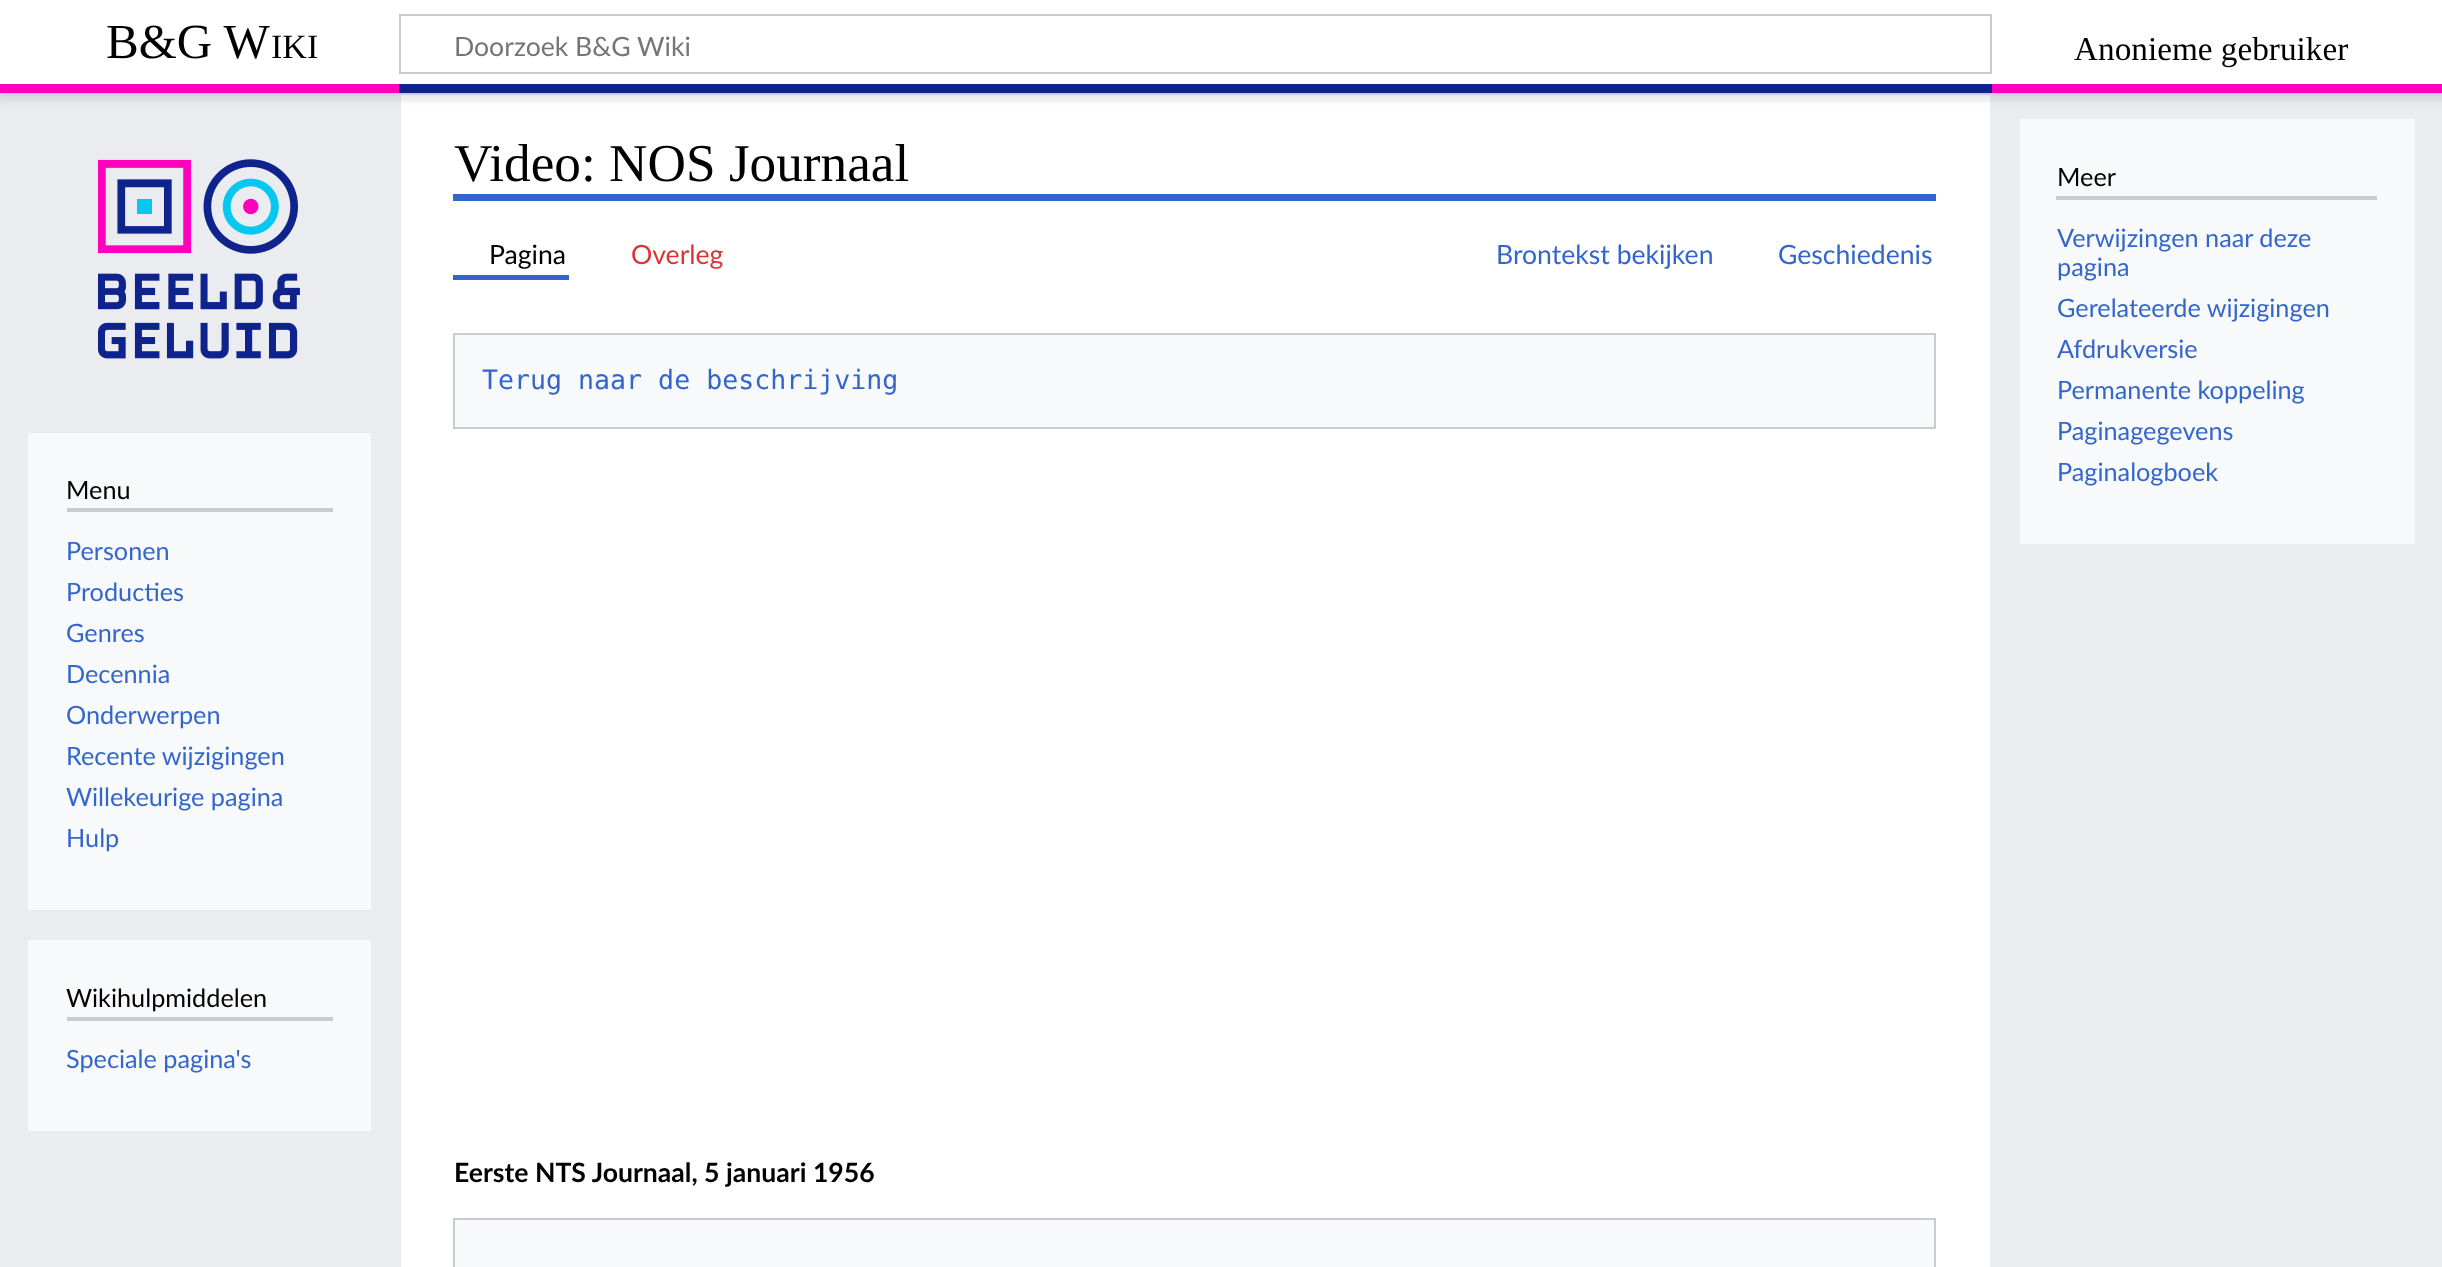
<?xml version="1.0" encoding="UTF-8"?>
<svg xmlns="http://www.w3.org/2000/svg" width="2442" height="1267">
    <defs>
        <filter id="blur1" x="-50%" y="-200%" width="200%" height="500%"><feGaussianBlur stdDeviation="2"/></filter>
        <filter id="blur2" x="-50%" y="-200%" width="200%" height="500%"><feGaussianBlur stdDeviation="2.5"/></filter>
    </defs>
    <rect width="100%" height="100%" fill="#EAECF0"/>
    <rect x="401" y="95" width="1589" height="1172" fill="#FFFFFF"/>
    <rect x="0" y="84" width="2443" height="9" fill="#000000" fill-opacity="0.2" filter="url(#blur1)"/>
    <rect x="-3" y="86" width="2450" height="16" fill="#000000" fill-opacity="0.07" filter="url(#blur2)"/>
    <rect x="0" y="0" width="2442" height="84" fill="#FFFFFF"/>
    <text x="106" y="58" font-family="Liberation Serif" font-size="49" fill="#000000">B&amp;G W</text>
    <text x="271" y="58" font-family="Liberation Serif" font-size="34" fill="#000000">IKI</text>
    <rect x="400" y="15" width="1591" height="58" fill="none" stroke="#C8CCD1" stroke-width="2"/>
    <text x="454" y="56" font-family="Lato" font-size="26.6" fill="#757575">Doorzoek B&amp;G Wiki</text>
    <text x="2074" y="60" font-family="Liberation Serif" font-size="33.25" fill="#000000">Anonieme gebruiker</text>
    <rect x="0" y="84" width="399" height="9" fill="#FF00BC"/>
    <rect x="399" y="84" width="1593" height="9" fill="#0F238C"/>
    <rect x="1992" y="84" width="450" height="9" fill="#FF00BC"/>
    <rect x="453" y="194" width="1483" height="7" fill="#3366CC"/>
    <text x="454" y="181" font-family="Liberation Serif" font-size="53.25" fill="#000000">Video: NOS Journaal</text>
    <rect x="453" y="275" width="116" height="5" fill="#3366CC"/>
    <text x="489" y="264" font-family="Lato" font-size="26.6" fill="#000000">Pagina</text>
    <text x="631" y="264" font-family="Lato" font-size="26.6" fill="#DD3333">Overleg</text>
    <text x="1496" y="264" font-family="Lato" font-size="26.6" fill="#3366CC">Brontekst bekijken</text>
    <text x="1778" y="264" font-family="Lato" font-size="26.6" fill="#3366CC">Geschiedenis</text>
    <rect x="454" y="334" width="1481" height="94" fill="#F8F9FA" stroke="#C8CCD1" stroke-width="2"/>
    <text x="482" y="389" font-family="DejaVu Sans Mono" font-size="26.6" fill="#3366CC">Terug naar de beschrijving</text>
    <text x="454" y="1182" font-family="Lato" font-size="26.6" font-weight="700" fill="#000000">Eerste NTS Journaal, 5 januari 1956</text>
    <rect x="454" y="1219" width="1481" height="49" fill="#F8F9FA" stroke="#C8CCD1" stroke-width="2"/>
    <rect x="2020" y="119" width="395" height="425" fill="#F8F9FA"/>
    <rect x="2056" y="196" width="321" height="4" fill="#C8CCD1"/>
    <text x="2057" y="186" font-family="Lato" font-size="25.25" fill="#000000">Meer</text>
    <text font-family="Lato" font-size="25.25" fill="#3366CC">
        <tspan x="2057" y="247">Verwijzingen naar deze</tspan>
        <tspan x="2057" y="276">pagina</tspan>
        <tspan x="2057" y="317">Gerelateerde wijzigingen</tspan>
        <tspan x="2057" y="358">Afdrukversie</tspan>
        <tspan x="2057" y="399">Permanente koppeling</tspan>
        <tspan x="2057" y="440">Paginagegevens</tspan>
        <tspan x="2057" y="481">Paginalogboek</tspan>
    </text>
    <image x="98" y="159" width="202" height="200" href="img_01.png"/>
    <rect x="28" y="433" width="343" height="477" fill="#F8F9FA"/>
    <rect x="67" y="508" width="266" height="4" fill="#C8CCD1"/>
    <text x="66" y="499" font-family="Lato" font-size="25.25" fill="#000000">Menu</text>
    <text font-family="Lato" font-size="25.25" fill="#3366CC">
        <tspan x="66" y="560">Personen</tspan>
        <tspan x="66" y="601">Producties</tspan>
        <tspan x="66" y="642">Genres</tspan>
        <tspan x="66" y="683">Decennia</tspan>
        <tspan x="66" y="724">Onderwerpen</tspan>
        <tspan x="66" y="765">Recente wijzigingen</tspan>
        <tspan x="66" y="806">Willekeurige pagina</tspan>
        <tspan x="66" y="847">Hulp</tspan>
    </text>
    <rect x="28" y="940" width="343" height="191" fill="#F8F9FA"/>
    <rect x="67" y="1017" width="266" height="4" fill="#C8CCD1"/>
    <text x="66" y="1007" font-family="Lato" font-size="25.25" fill="#000000">Wikihulpmiddelen</text>
    <text x="66" y="1068" font-family="Lato" font-size="25.25" fill="#3366CC">Speciale pagina's</text>
</svg>
